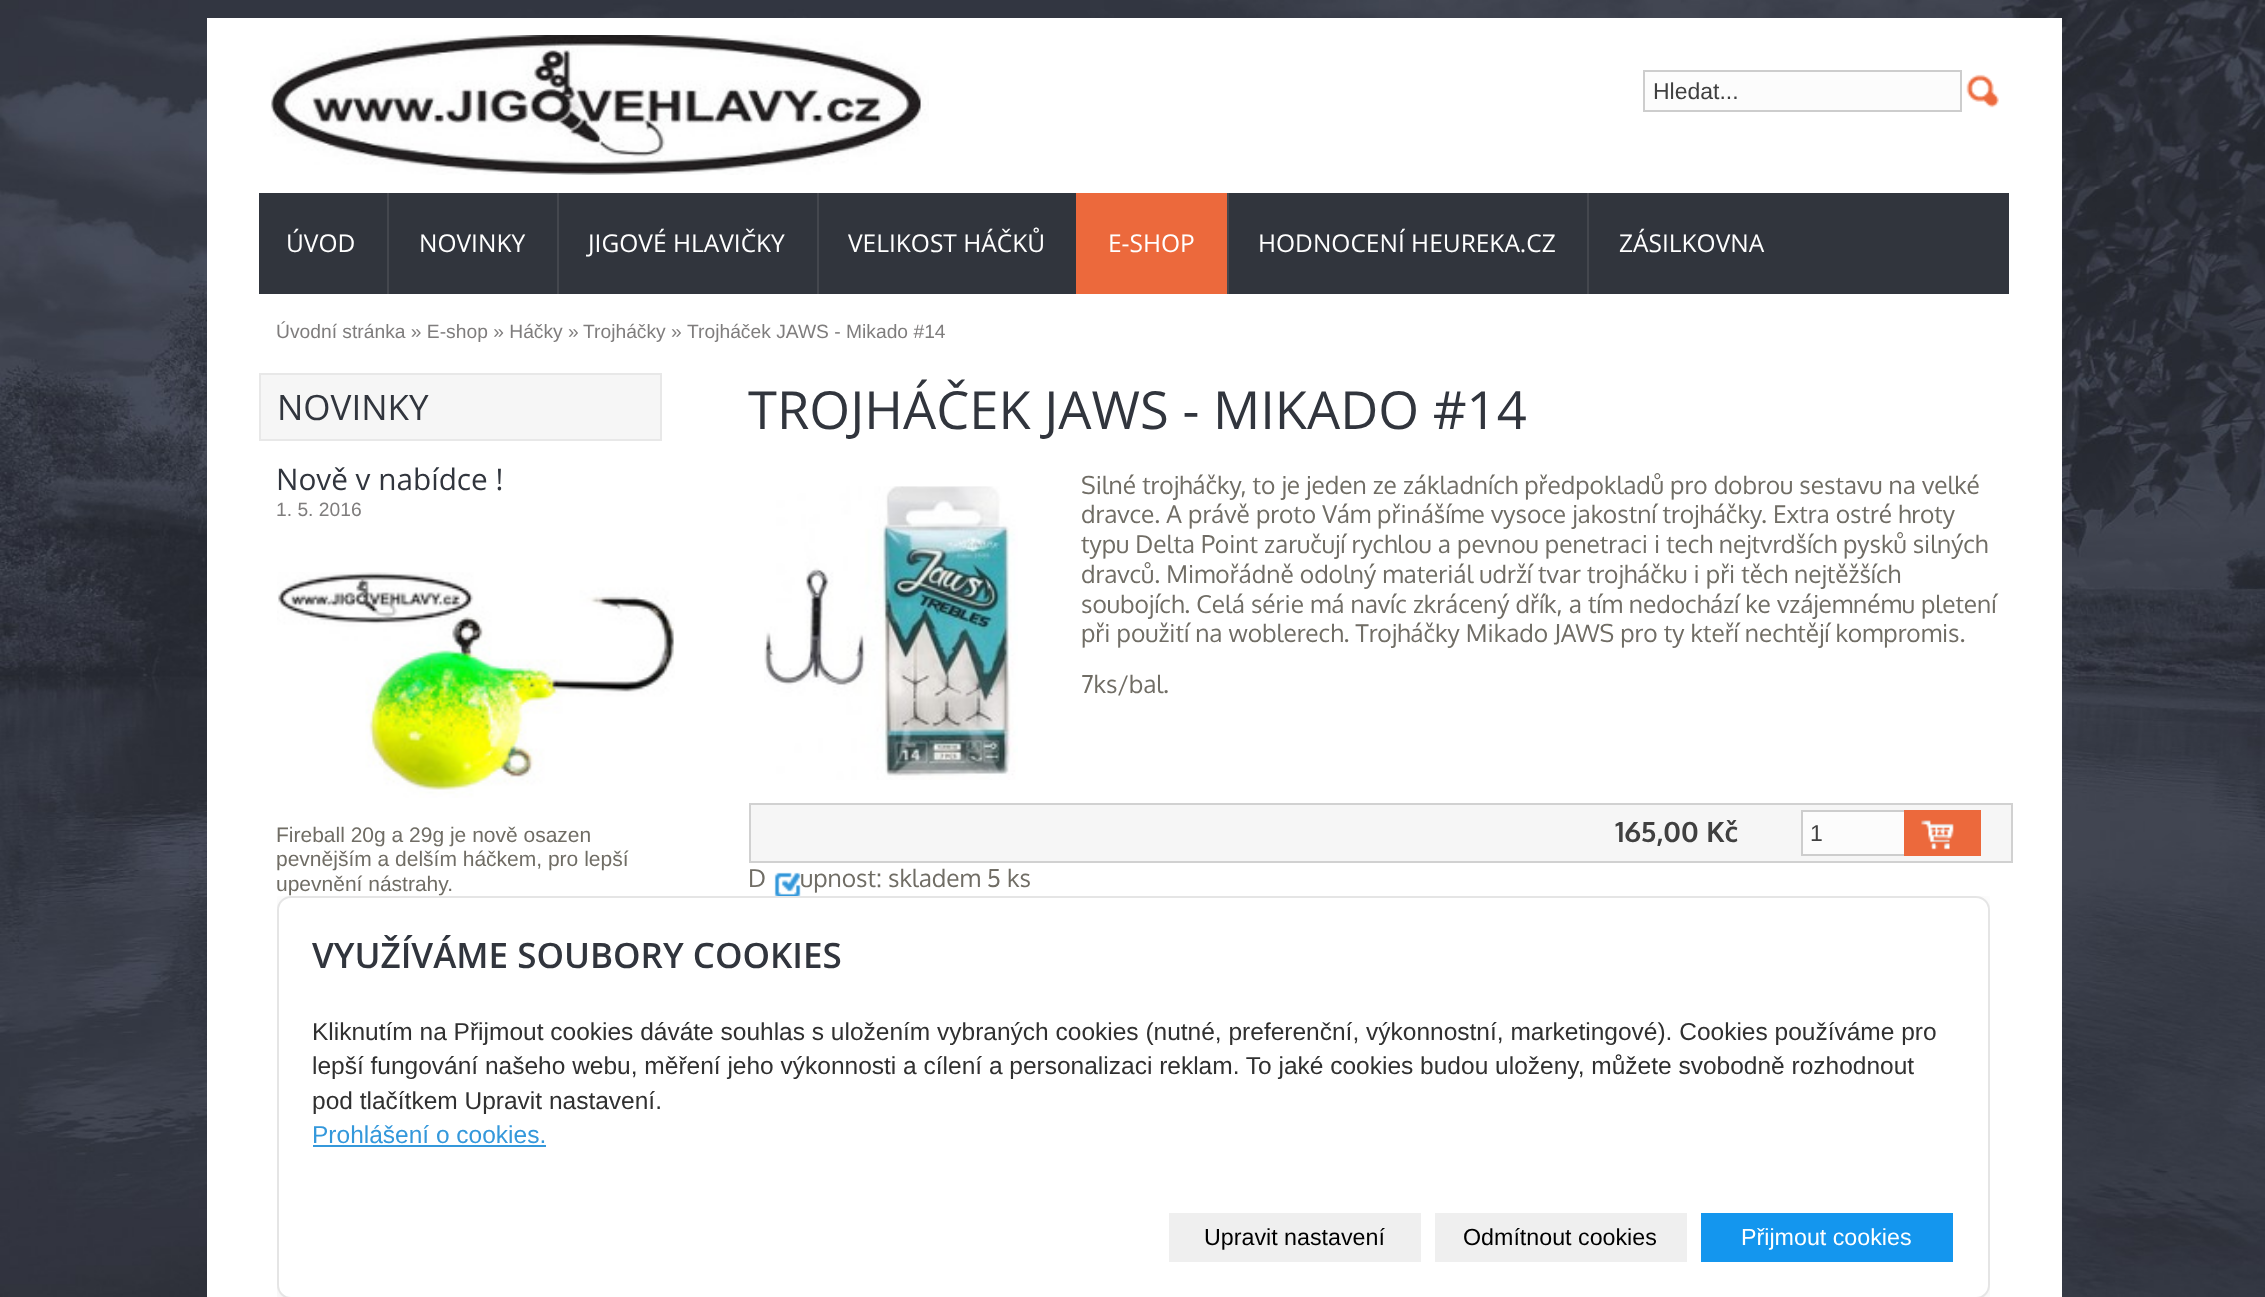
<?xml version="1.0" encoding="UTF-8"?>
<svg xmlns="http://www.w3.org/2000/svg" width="2265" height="1297">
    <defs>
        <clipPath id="clip1"><rect x="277" y="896" width="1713" height="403"/></clipPath>
        <filter id="blur1" x="-50%" y="-200%" width="200%" height="500%"><feGaussianBlur stdDeviation="17.5"/></filter>
    </defs>
    <rect width="100%" height="100%" fill="#FFFFFF"/>
    <image x="0" y="0" width="2265" height="1297" href="img_01.png"/>
    <rect x="207" y="18" width="1855" height="1279" fill="#FFFFFF"/>
    <image x="270" y="35" width="659" height="140" href="img_02.png"/>
    <rect x="1644" y="71" width="317" height="40" fill="#FCFCFC" stroke="#CDCDCD" stroke-width="2"/>
    <text x="1653" y="99" font-family="Liberation Sans" font-size="23" fill="#404040">Hledat...</text>
    <image x="1966" y="74" width="33" height="34" href="img_03.png"/>
    <rect x="259" y="193" width="1750" height="101" fill="#31353D"/>
    <text x="286" y="252" font-family="Open Sans" font-size="24.5" fill="#FFFFFF">ÚVOD</text>
    <rect x="387" y="193" width="2" height="101" fill="#44474E"/>
    <text x="419" y="252" font-family="Open Sans" font-size="24.5" fill="#FFFFFF">NOVINKY</text>
    <rect x="557" y="193" width="2" height="101" fill="#44474E"/>
    <text x="588" y="252" font-family="Open Sans" font-size="24.5" fill="#FFFFFF">JIGOVÉ HLAVIČKY</text>
    <rect x="817" y="193" width="2" height="101" fill="#44474E"/>
    <text x="848" y="252" font-family="Open Sans" font-size="24.5" fill="#FFFFFF">VELIKOST HÁČKŮ</text>
    <rect x="1076" y="193" width="151" height="101" fill="#EC693C"/>
    <text x="1108" y="252" font-family="Open Sans" font-size="24.5" fill="#FFFFFF">E-SHOP</text>
    <rect x="1227" y="193" width="2" height="101" fill="#44474E"/>
    <text x="1258" y="252" font-family="Open Sans" font-size="24.5" fill="#FFFFFF">HODNOCENÍ HEUREKA.CZ</text>
    <rect x="1587" y="193" width="2" height="101" fill="#44474E"/>
    <text x="1619" y="252" font-family="Open Sans" font-size="24.5" fill="#FFFFFF">ZÁSILKOVNA</text>
    <text x="276" y="338" font-family="Liberation Sans" font-size="19.25" fill="#7F7D7D">Úvodní stránka » E-shop » Háčky »</text>
    <text x="583" y="338" font-family="Liberation Sans" font-size="19.25" fill="#7F7D7D">Trojháčky »</text>
    <text x="687" y="338" font-family="Liberation Sans" font-size="19.25" fill="#7F7D7D">Trojháček JAWS - Mikado #14</text>
    <text x="748" y="429" font-family="Open Sans" font-size="52.5" fill="#31353D">TROJHÁČEK JAWS - MIKADO #14</text>
    <image x="764" y="486" width="254" height="294" href="img_04.png"/>
    <text font-family="Oxygen" font-size="24.5" fill="#706D65">
        <tspan x="1081" y="494">Silné trojháčky, to je jeden ze základních předpokladů pro dobrou sestavu na velké</tspan>
        <tspan x="1081" y="523">dravce. A právě proto Vám přinášíme vysoce jakostní trojháčky. Extra ostré hroty</tspan>
        <tspan x="1081" y="553">typu Delta Point zaručují rychlou a pevnou penetraci i tech nejtvrdších pysků silných</tspan>
        <tspan x="1081" y="583">dravců. Mimořádně odolný materiál udrží tvar trojháčku i při těch nejtěžších</tspan>
        <tspan x="1081" y="613">soubojích. Celá série má navíc zkrácený dřík, a tím nedochází ke vzájemnému pletení</tspan>
        <tspan x="1081" y="642">při použití na woblerech. Trojháčky Mikado JAWS pro ty kteří nechtějí kompromis.</tspan>
    </text>
    <text x="1081" y="693" font-family="Oxygen" font-size="24.5" fill="#706D65">7ks/bal.</text>
    <rect x="750" y="804" width="1262" height="58" fill="#F6F6F6" stroke="#D1D1D1" stroke-width="2"/>
    <text x="1615" y="842" font-family="Oxygen" font-size="28" font-weight="700" fill="#404040">165,00 Kč</text>
    <rect x="1803" y="812" width="101" height="42" fill="#FCFCFC"/>
    <rect x="1802" y="811" width="106" height="44" fill="none" stroke="#CDCDCD" stroke-width="2"/>
    <text x="1810" y="841" font-family="Liberation Sans" font-size="23" fill="#404040">1</text>
    <rect x="1904" y="810" width="77" height="46" fill="#EC693C"/>
    <image x="1921" y="820" width="33" height="30" href="img_05.png"/>
    <text x="748" y="887" font-family="Oxygen" font-size="24.5" fill="#706D65">D</text>
    <text x="800" y="887" font-family="Oxygen" font-size="24.5" fill="#706D65">upnost: skladem 5 ks</text>
    <image x="774" y="872" width="27" height="24" href="img_06.png"/>
    <rect x="260" y="374" width="401" height="66" fill="#F6F6F6" stroke="#E8E8E8" stroke-width="2"/>
    <text x="277" y="420" font-family="Open Sans" font-size="35" fill="#31353D">NOVINKY</text>
    <text x="276" y="490" font-family="Open Sans" font-size="29.75" fill="#31353D">Nově v nabídce !</text>
    <text x="276" y="516" font-family="Liberation Sans" font-size="19.25" fill="#7F7D7D">1. 5. 2016</text>
    <image x="277" y="572" width="398" height="226" href="img_07.png"/>
    <text font-family="Liberation Sans" font-size="21" fill="#706D65">
        <tspan x="276" y="842">Fireball 20g a 29g je nově osazen</tspan>
        <tspan x="276" y="866">pevnějším a delším háčkem, pro lepší</tspan>
        <tspan x="276" y="891">upevnění nástrahy.</tspan>
    </text>
    <g clip-path="url(#clip1)">
        <rect x="294" y="917" width="1678" height="368" fill="#000000" fill-opacity="0.5" filter="url(#blur1)"/>
    </g>
    <rect x="277" y="896" width="1713" height="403" rx="14" fill="#FFFFFF"/>
    <rect x="278" y="897" width="1711" height="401" rx="13" fill="none" stroke="#000000" stroke-opacity="0.1" stroke-width="2"/>
    <text x="312" y="968" font-family="Open Sans" font-size="35" font-weight="600" fill="#31353D">VYUŽÍVÁME SOUBORY COOKIES</text>
    <text font-family="Liberation Sans" font-size="24.5" fill="#303030">
        <tspan x="312" y="1040">Kliknutím na Přijmout cookies dáváte souhlas s uložením vybraných cookies (nutné, preferenční, výkonnostní, marketingové). Cookies používáme pro</tspan>
        <tspan x="312" y="1074">lepší fungování našeho webu, měření jeho výkonnosti a cílení a personalizaci reklam. To jaké cookies budou uloženy, můžete svobodně rozhodnout</tspan>
        <tspan x="312" y="1109">pod tlačítkem Upravit nastavení.</tspan>
    </text>
    <text x="312" y="1143" font-family="Liberation Sans" font-size="24.5" fill="#3498DB">Prohlášení o cookies.</text>
    <rect x="313" y="1145" width="233" height="2" fill="#3498DB"/>
    <rect x="1169" y="1213" width="252" height="49" fill="#EFEFEF"/>
    <text x="1204" y="1245" font-family="Liberation Sans" font-size="23.25" fill="#000000">Upravit nastavení</text>
    <rect x="1435" y="1213" width="252" height="49" fill="#EFEFEF"/>
    <text x="1463" y="1245" font-family="Liberation Sans" font-size="23.25" fill="#000000">Odmítnout cookies</text>
    <rect x="1701" y="1213" width="252" height="49" fill="#1496EE"/>
    <text x="1741" y="1245" font-family="Liberation Sans" font-size="23.25" fill="#FFFFFF">Přijmout cookies</text>
</svg>
